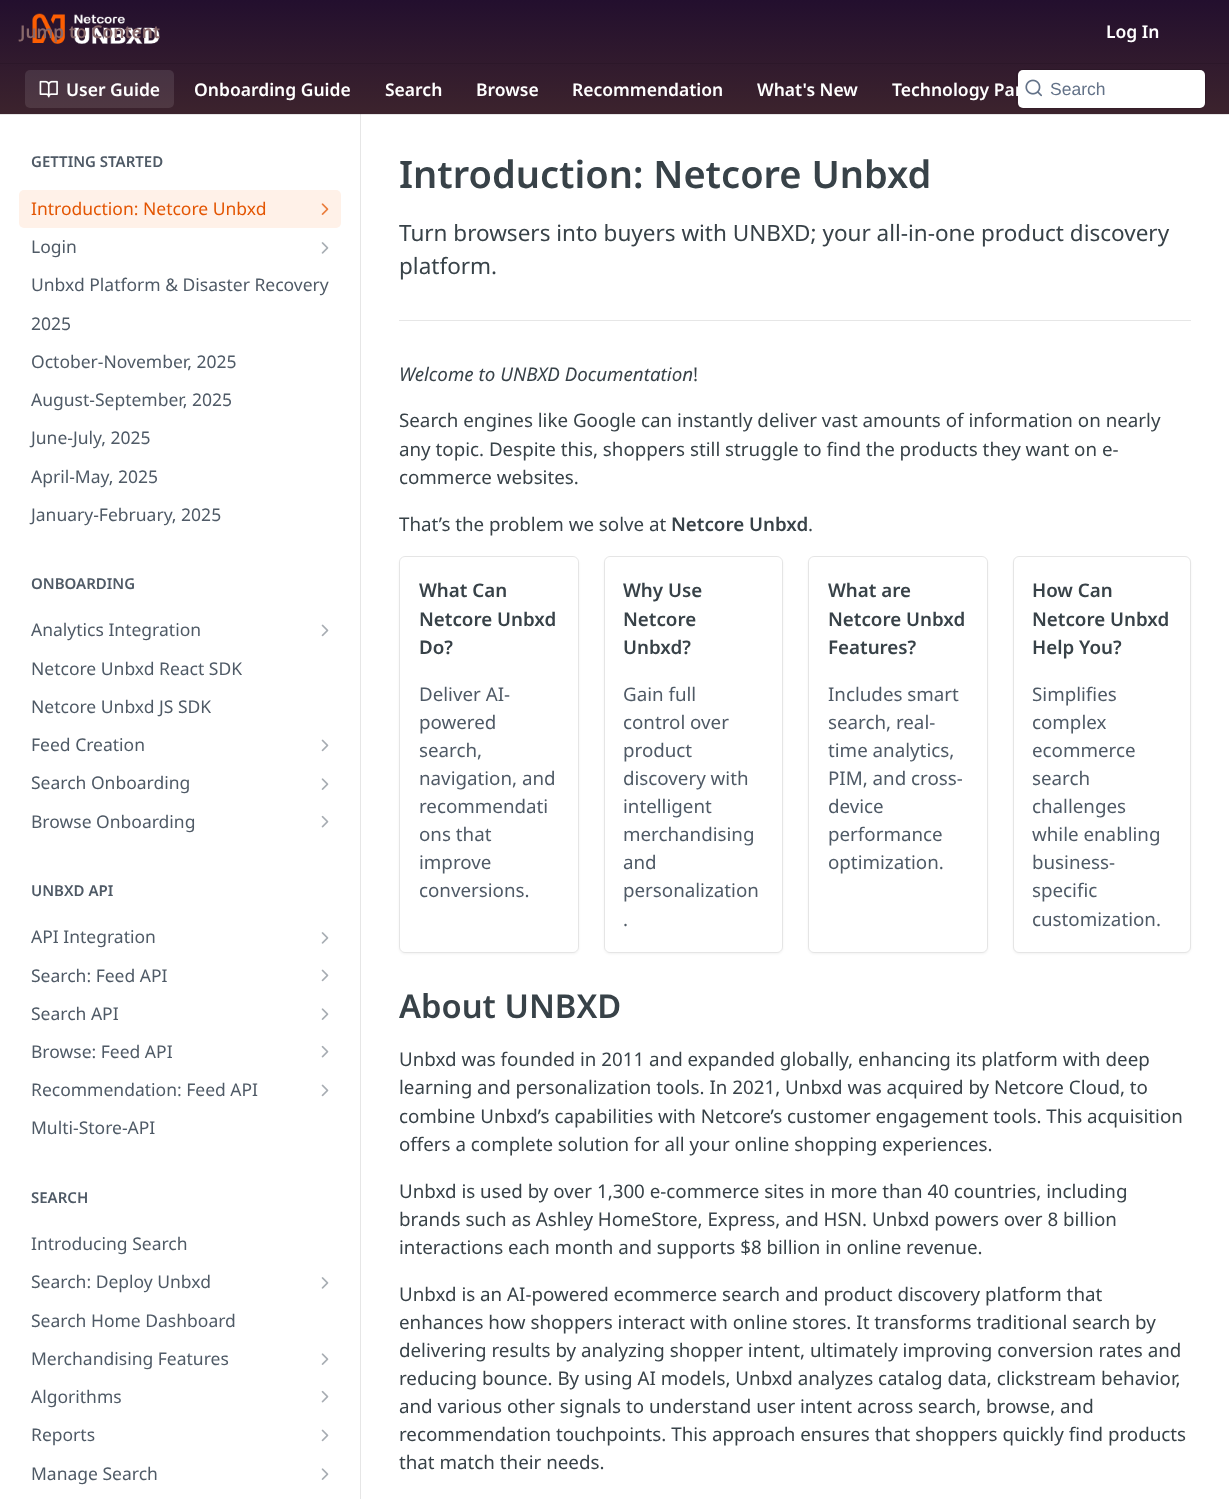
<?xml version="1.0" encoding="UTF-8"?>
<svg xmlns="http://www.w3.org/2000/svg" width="1229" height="1499">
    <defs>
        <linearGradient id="g1" gradientUnits="userSpaceOnUse" x1="615" y1="0" x2="615" y2="114"><stop offset="0" stop-color="#230F2E"/><stop offset="1" stop-color="#3C232D"/></linearGradient>
        <filter id="blur1" x="-50%" y="-200%" width="200%" height="500%"><feGaussianBlur stdDeviation="1"/></filter>
    </defs>
    <rect width="100%" height="100%" fill="#FFFFFF"/>
    <path d="M 1 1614 H 361 V 114 H 360 V 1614 Z" fill="#E6E6E6"/>
    <rect x="0" y="114" width="1229" height="1" fill="#000000" fill-opacity="0.1"/>
    <rect x="0" y="0" width="1229" height="114" fill="url(#g1)"/>
    <rect x="0" y="63" width="1229" height="1" fill="#2C1729"/>
    <image x="32" y="13" width="128" height="31" href="img_01.png"/>
    <text x="20" y="38" font-family="Noto Sans" font-size="17.5" font-weight="600" fill="#89696B">Jump to Content</text>
    <text x="1106" y="38" font-family="Noto Sans" font-size="17.5" font-weight="600" fill="#FFFFFF">Log In</text>
    <rect x="25" y="70" width="149" height="38" rx="5" fill="#FFFFFF" fill-opacity="0.1"/>
    <image x="39" y="80" width="19" height="18" href="img_02.png"/>
    <text x="66" y="96" font-family="Noto Sans" font-size="17.5" font-weight="600" fill="#FFFFFF">User Guide</text>
    <text x="194" y="96" font-family="Noto Sans" font-size="17.5" font-weight="600" fill="#FFFFFF">Onboarding Guide</text>
    <text x="385" y="96" font-family="Noto Sans" font-size="17.5" font-weight="600" fill="#FFFFFF">Search</text>
    <text x="476" y="96" font-family="Noto Sans" font-size="17.5" font-weight="600" fill="#FFFFFF">Browse</text>
    <text x="572" y="96" font-family="Noto Sans" font-size="17.5" font-weight="600" fill="#FFFFFF">Recommendation</text>
    <text x="757" y="96" font-family="Noto Sans" font-size="17.5" font-weight="600" fill="#FFFFFF">What's New</text>
    <text x="892" y="96" font-family="Noto Sans" font-size="17.5" font-weight="600" fill="#FFFFFF">Technology Par</text>
    <rect x="1016.5" y="69.5" width="189" height="39" rx="5.5" fill="none" stroke="#000000" stroke-opacity="0.1"/>
    <rect x="1018" y="70" width="187" height="38" rx="5" fill="#FFFFFF"/>
    <image x="1025" y="79" width="17" height="18" href="img_03.png"/>
    <text x="1050" y="95" font-family="Liberation Sans" font-size="17.5" fill="#637288">Search</text>
    <text x="31" y="167" font-family="Noto Sans" font-size="15" font-weight="600" fill="#4F5A66">GETTING STARTED</text>
    <rect x="19" y="190" width="322" height="38" rx="5" fill="#FFF1E8"/>
    <text x="31" y="215" font-family="Noto Sans" font-size="17.5" fill="#E35502">Introduction: Netcore Unbxd</text>
    <image x="321" y="203" width="8" height="12" href="img_04.png"/>
    <text x="31" y="253" font-family="Noto Sans" font-size="17.5" fill="#4F5A66">Login</text>
    <image x="321" y="242" width="8" height="12" href="img_05.png"/>
    <text x="31" y="291" font-family="Noto Sans" font-size="17.5" fill="#4F5A66">Unbxd Platform &amp; Disaster Recovery</text>
    <text x="31" y="330" font-family="Noto Sans" font-size="17.5" fill="#4F5A66">2025</text>
    <text x="31" y="368" font-family="Noto Sans" font-size="17.5" fill="#4F5A66">October-November, 2025</text>
    <text x="31" y="406" font-family="Noto Sans" font-size="17.5" fill="#4F5A66">August-September, 2025</text>
    <text x="31" y="444" font-family="Noto Sans" font-size="17.5" fill="#4F5A66">June-July, 2025</text>
    <text x="31" y="483" font-family="Noto Sans" font-size="17.5" fill="#4F5A66">April-May, 2025</text>
    <text x="31" y="521" font-family="Noto Sans" font-size="17.5" fill="#4F5A66">January-February, 2025</text>
    <text x="31" y="589" font-family="Noto Sans" font-size="15" font-weight="600" fill="#4F5A66">ONBOARDING</text>
    <text x="31" y="636" font-family="Noto Sans" font-size="17.5" fill="#4F5A66">Analytics Integration</text>
    <image x="321" y="624" width="8" height="13" href="img_06.png"/>
    <text x="31" y="675" font-family="Noto Sans" font-size="17.5" fill="#4F5A66">Netcore Unbxd React SDK</text>
    <text x="31" y="713" font-family="Noto Sans" font-size="17.5" fill="#4F5A66">Netcore Unbxd JS SDK</text>
    <text x="31" y="751" font-family="Noto Sans" font-size="17.5" fill="#4F5A66">Feed Creation</text>
    <image x="321" y="739" width="8" height="13" href="img_06.png"/>
    <text x="31" y="789" font-family="Noto Sans" font-size="17.5" fill="#4F5A66">Search Onboarding</text>
    <image x="321" y="778" width="8" height="12" href="img_07.png"/>
    <text x="31" y="828" font-family="Noto Sans" font-size="17.5" fill="#4F5A66">Browse Onboarding</text>
    <image x="321" y="815" width="8" height="13" href="img_08.png"/>
    <text x="31" y="896" font-family="Noto Sans" font-size="15" font-weight="600" fill="#4F5A66">UNBXD API</text>
    <text x="31" y="943" font-family="Noto Sans" font-size="17.5" fill="#4F5A66">API Integration</text>
    <image x="321" y="932" width="8" height="12" href="img_05.png"/>
    <text x="31" y="982" font-family="Noto Sans" font-size="17.5" fill="#4F5A66">Search: Feed API</text>
    <image x="321" y="969" width="8" height="13" href="img_06.png"/>
    <text x="31" y="1020" font-family="Noto Sans" font-size="17.5" fill="#4F5A66">Search API</text>
    <image x="321" y="1008" width="8" height="12" href="img_07.png"/>
    <text x="31" y="1058" font-family="Noto Sans" font-size="17.5" fill="#4F5A66">Browse: Feed API</text>
    <image x="321" y="1045" width="8" height="13" href="img_08.png"/>
    <text x="31" y="1096" font-family="Noto Sans" font-size="17.5" fill="#4F5A66">Recommendation: Feed API</text>
    <image x="321" y="1084" width="8" height="13" href="img_06.png"/>
    <text x="31" y="1134" font-family="Noto Sans" font-size="17.5" fill="#4F5A66">Multi-Store-API</text>
    <text x="31" y="1203" font-family="Noto Sans" font-size="15" font-weight="600" fill="#4F5A66">SEARCH</text>
    <text x="31" y="1250" font-family="Noto Sans" font-size="17.5" fill="#4F5A66">Introducing Search</text>
    <text x="31" y="1288" font-family="Noto Sans" font-size="17.5" fill="#4F5A66">Search: Deploy Unbxd</text>
    <image x="321" y="1277" width="8" height="12" href="img_05.png"/>
    <text x="31" y="1327" font-family="Noto Sans" font-size="17.5" fill="#4F5A66">Search Home Dashboard</text>
    <text x="31" y="1365" font-family="Noto Sans" font-size="17.5" fill="#4F5A66">Merchandising Features</text>
    <image x="321" y="1353" width="8" height="12" href="img_07.png"/>
    <text x="31" y="1403" font-family="Noto Sans" font-size="17.5" fill="#4F5A66">Algorithms</text>
    <image x="321" y="1390" width="8" height="13" href="img_08.png"/>
    <text x="31" y="1441" font-family="Noto Sans" font-size="17.5" fill="#4F5A66">Reports</text>
    <image x="321" y="1429" width="8" height="13" href="img_06.png"/>
    <text x="31" y="1480" font-family="Noto Sans" font-size="17.5" fill="#4F5A66">Manage Search</text>
    <image x="321" y="1468" width="8" height="12" href="img_07.png"/>
    <rect x="399" y="320" width="792" height="1" fill="#E6E6E6"/>
    <text x="399" y="188" font-family="Noto Sans" font-size="38" font-weight="600" fill="#384248">Introduction: Netcore Unbxd</text>
    <text font-family="Noto Sans" font-size="22.5" fill="#384248">
        <tspan x="399" y="241">Turn browsers into buyers with UNBXD; your all-in-one product discovery</tspan>
        <tspan x="399" y="274">platform.</tspan>
    </text>
    <text x="399" y="381" font-family="Noto Sans" font-size="18.75" font-style="italic" fill="#384248">Welcome to UNBXD Documentation</text>
    <text x="693" y="381" font-family="Noto Sans" font-size="18.75" fill="#384248">!</text>
    <text font-family="Noto Sans" font-size="18.75" fill="#384248">
        <tspan x="399" y="427">Search engines like Google can instantly deliver vast amounts of information on nearly</tspan>
        <tspan x="399" y="456">any topic. Despite this, shoppers still struggle to find the products they want on e-</tspan>
        <tspan x="399" y="484">commerce websites.</tspan>
    </text>
    <text x="399" y="531" font-family="Noto Sans" font-size="18.75" fill="#384248">That’s the problem we solve at</text>
    <text x="671" y="531" font-family="Noto Sans" font-size="18.75" font-weight="600" fill="#384248">Netcore Unbxd</text>
    <text x="808" y="531" font-family="Noto Sans" font-size="18.75" fill="#384248">.</text>
    <rect x="399" y="558" width="180" height="396" rx="6" fill="#000000" fill-opacity="0.05" filter="url(#blur1)"/>
    <rect x="399" y="556" width="180" height="397" rx="6" fill="#FFFFFF"/>
    <rect x="399.5" y="556.5" width="179" height="396" rx="5.5" fill="none" stroke="#000000" stroke-opacity="0.1"/>
    <text font-family="Noto Sans" font-size="18.75" font-weight="600" fill="#384248">
        <tspan x="419" y="597">What Can</tspan>
        <tspan x="419" y="626">Netcore Unbxd</tspan>
        <tspan x="419" y="654">Do?</tspan>
    </text>
    <text font-family="Noto Sans" font-size="18.75" fill="#4F5A66">
        <tspan x="419" y="701">Deliver AI-</tspan>
        <tspan x="419" y="729">powered</tspan>
        <tspan x="419" y="757">search,</tspan>
        <tspan x="419" y="785">navigation, and</tspan>
        <tspan x="419" y="813">recommendati</tspan>
        <tspan x="419" y="841">ons that</tspan>
        <tspan x="419" y="869">improve</tspan>
        <tspan x="419" y="897">conversions.</tspan>
    </text>
    <rect x="604" y="558" width="179" height="396" rx="6" fill="#000000" fill-opacity="0.05" filter="url(#blur1)"/>
    <rect x="604" y="556" width="179" height="397" rx="6" fill="#FFFFFF"/>
    <rect x="604.5" y="556.5" width="178" height="396" rx="5.5" fill="none" stroke="#000000" stroke-opacity="0.1"/>
    <text font-family="Noto Sans" font-size="18.75" font-weight="600" fill="#384248">
        <tspan x="623" y="597">Why Use</tspan>
        <tspan x="623" y="626">Netcore</tspan>
        <tspan x="623" y="654">Unbxd?</tspan>
    </text>
    <text font-family="Noto Sans" font-size="18.75" fill="#4F5A66">
        <tspan x="623" y="701">Gain full</tspan>
        <tspan x="623" y="729">control over</tspan>
        <tspan x="623" y="757">product</tspan>
        <tspan x="623" y="785">discovery with</tspan>
        <tspan x="623" y="813">intelligent</tspan>
        <tspan x="623" y="841">merchandising</tspan>
        <tspan x="623" y="869">and</tspan>
        <tspan x="623" y="897">personalization</tspan>
        <tspan x="623" y="926">.</tspan>
    </text>
    <rect x="808" y="558" width="180" height="396" rx="6" fill="#000000" fill-opacity="0.05" filter="url(#blur1)"/>
    <rect x="808" y="556" width="180" height="397" rx="6" fill="#FFFFFF"/>
    <rect x="808.5" y="556.5" width="179" height="396" rx="5.5" fill="none" stroke="#000000" stroke-opacity="0.1"/>
    <text font-family="Noto Sans" font-size="18.75" font-weight="600" fill="#384248">
        <tspan x="828" y="597">What are</tspan>
        <tspan x="828" y="626">Netcore Unbxd</tspan>
        <tspan x="828" y="654">Features?</tspan>
    </text>
    <text font-family="Noto Sans" font-size="18.75" fill="#4F5A66">
        <tspan x="828" y="701">Includes smart</tspan>
        <tspan x="828" y="729">search, real-</tspan>
        <tspan x="828" y="757">time analytics,</tspan>
        <tspan x="828" y="785">PIM, and cross-</tspan>
        <tspan x="828" y="813">device</tspan>
        <tspan x="828" y="841">performance</tspan>
        <tspan x="828" y="869">optimization.</tspan>
    </text>
    <rect x="1013" y="558" width="178" height="396" rx="6" fill="#000000" fill-opacity="0.05" filter="url(#blur1)"/>
    <rect x="1013.5" y="556.5" width="177" height="396" rx="5.5" fill="#FFFFFF" stroke="#E5E5E5"/>
    <text font-family="Noto Sans" font-size="18.75" font-weight="600" fill="#384248">
        <tspan x="1032" y="597">How Can</tspan>
        <tspan x="1032" y="626">Netcore Unbxd</tspan>
        <tspan x="1032" y="654">Help You?</tspan>
    </text>
    <text font-family="Noto Sans" font-size="18.75" fill="#4F5A66">
        <tspan x="1032" y="701">Simplifies</tspan>
        <tspan x="1032" y="729">complex</tspan>
        <tspan x="1032" y="757">ecommerce</tspan>
        <tspan x="1032" y="785">search</tspan>
        <tspan x="1032" y="813">challenges</tspan>
        <tspan x="1032" y="841">while enabling</tspan>
        <tspan x="1032" y="869">business-</tspan>
        <tspan x="1032" y="897">specific</tspan>
        <tspan x="1032" y="926">customization.</tspan>
    </text>
    <text x="399" y="1018" font-family="Noto Sans" font-size="32.75" font-weight="600" fill="#384248">About UNBXD</text>
    <text font-family="Noto Sans" font-size="18.75" fill="#384248">
        <tspan x="399" y="1066">Unbxd was founded in 2011 and expanded globally, enhancing its platform with deep</tspan>
        <tspan x="399" y="1094">learning and personalization tools. In 2021, Unbxd was acquired by Netcore Cloud, to</tspan>
        <tspan x="399" y="1123">combine Unbxd’s capabilities with Netcore’s customer engagement tools. This acquisition</tspan>
        <tspan x="399" y="1151">offers a complete solution for all your online shopping experiences.</tspan>
    </text>
    <text font-family="Noto Sans" font-size="18.75" fill="#384248">
        <tspan x="399" y="1198">Unbxd is used by over 1,300 e-commerce sites in more than 40 countries, including</tspan>
        <tspan x="399" y="1226">brands such as Ashley HomeStore, Express, and HSN. Unbxd powers over 8 billion</tspan>
        <tspan x="399" y="1254">interactions each month and supports $8 billion in online revenue.</tspan>
    </text>
    <text font-family="Noto Sans" font-size="18.75" fill="#384248">
        <tspan x="399" y="1301">Unbxd is an AI-powered ecommerce search and product discovery platform that</tspan>
        <tspan x="399" y="1329">enhances how shoppers interact with online stores. It transforms traditional search by</tspan>
        <tspan x="399" y="1357">delivering results by analyzing shopper intent, ultimately improving conversion rates and</tspan>
        <tspan x="399" y="1385">reducing bounce. By using AI models, Unbxd analyzes catalog data, clickstream behavior,</tspan>
        <tspan x="399" y="1413">and various other signals to understand user intent across search, browse, and</tspan>
        <tspan x="399" y="1441">recommendation touchpoints. This approach ensures that shoppers quickly find products</tspan>
        <tspan x="399" y="1469">that match their needs.</tspan>
    </text>
</svg>
